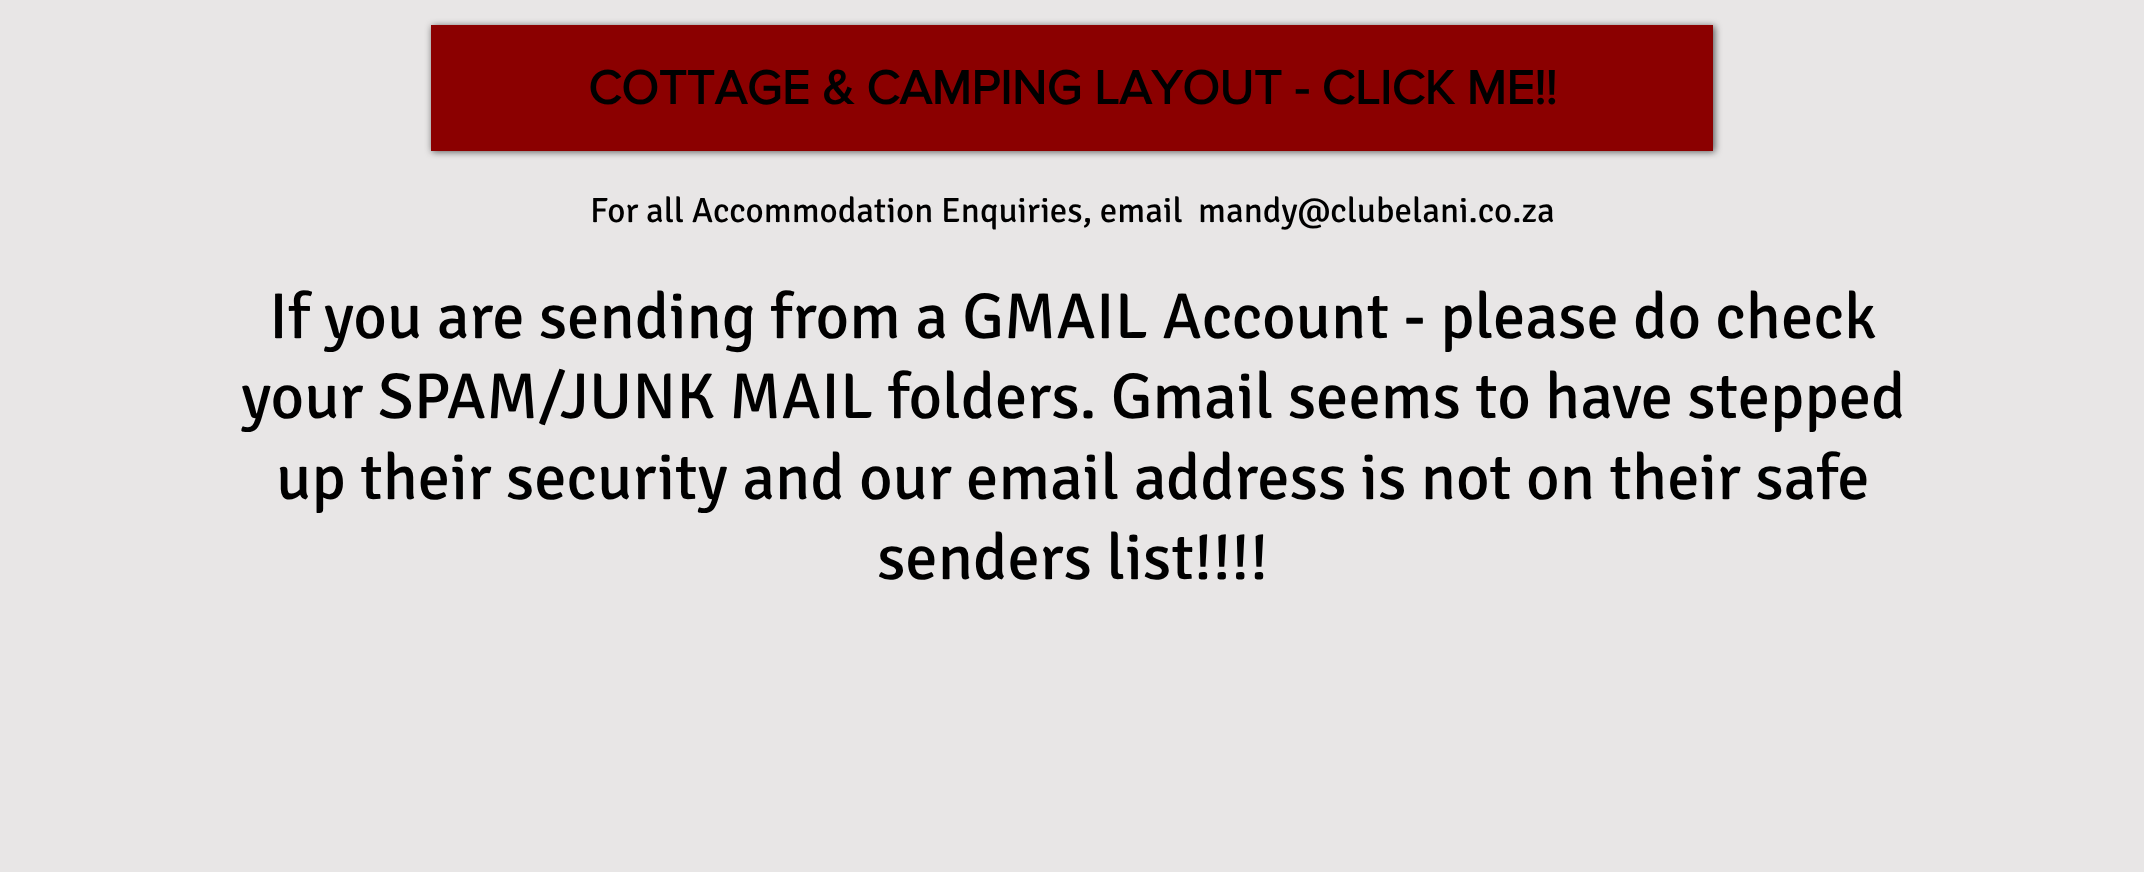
<?xml version="1.0" encoding="UTF-8"?>
<svg xmlns="http://www.w3.org/2000/svg" width="2144" height="872">
    <defs>
        <filter id="blur1" x="-50%" y="-200%" width="200%" height="500%"><feGaussianBlur stdDeviation="3.5"/></filter>
    </defs>
    <rect width="100%" height="100%" fill="#E8E6E6"/>
    <rect x="432" y="26" width="1283" height="126" fill="#000000" fill-opacity="0.6" filter="url(#blur1)"/>
    <rect x="431" y="25" width="1282" height="126" fill="#8B0000"/>
    <text x="588" y="104" font-family="'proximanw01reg'" font-size="49" font-weight="700" fill="#000000">COTTAGE &amp; CAMPING LAYOUT - CLICK ME!!</text>
    <text x="590" y="222" font-family="Signika" font-size="35" fill="#000000">For all Accommodation Enquiries, email</text>
    <text x="1198" y="222" font-family="Signika" font-size="35" fill="#000000">mandy@clubelani.co.za</text>
    <text x="269" y="338" font-family="Signika" font-size="64.75" fill="#000000">If you are sending from a GMAIL Account - please do check</text>
    <text x="241" y="418" font-family="Signika" font-size="64.75" fill="#000000">your SPAM/JUNK MAIL folders. Gmail seems to have stepped</text>
    <text x="276" y="499" font-family="Signika" font-size="64.75" fill="#000000">up their security and our email address is not on their safe</text>
    <text x="877" y="579" font-family="Signika" font-size="64.75" fill="#000000">senders list!!!!</text>
</svg>
